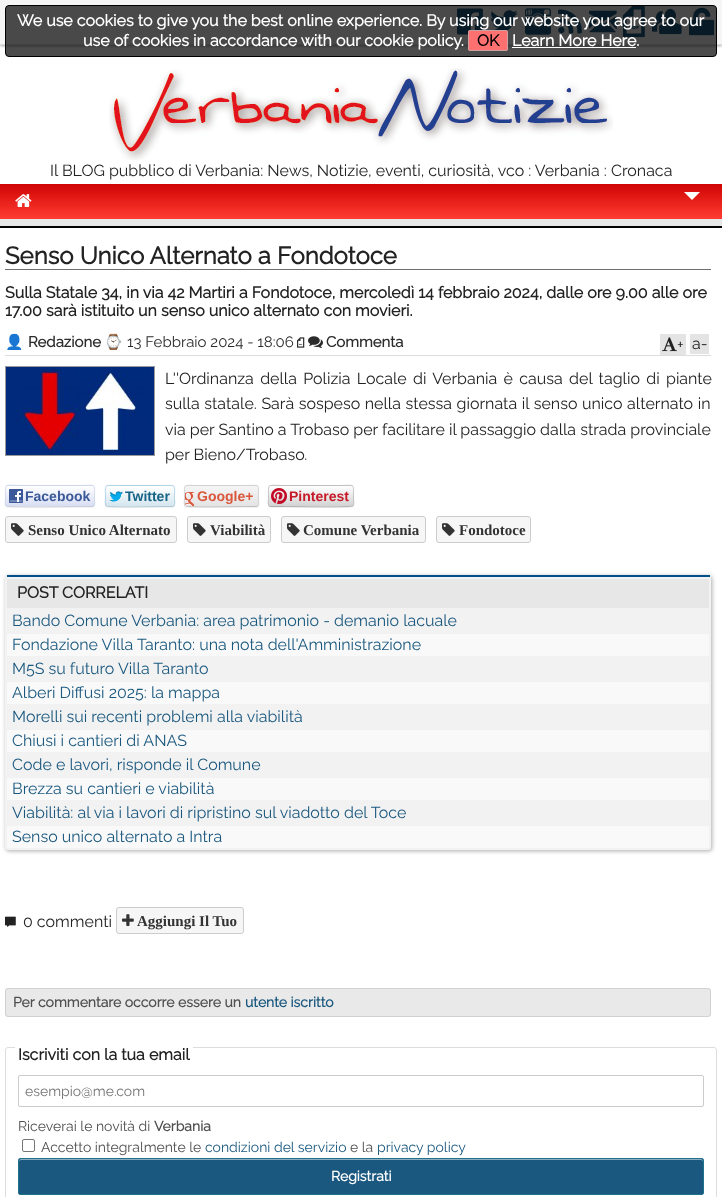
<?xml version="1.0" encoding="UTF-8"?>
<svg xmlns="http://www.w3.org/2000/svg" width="722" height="1197">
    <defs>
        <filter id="blur1" x="-50%" y="-200%" width="200%" height="500%"><feGaussianBlur stdDeviation="1.5"/></filter>
        <linearGradient id="g1" gradientUnits="userSpaceOnUse" x1="361" y1="184" x2="361" y2="219"><stop offset="0" stop-color="#CF0404"/><stop offset="1" stop-color="#FF3D32"/></linearGradient>
        <filter id="blur2" x="-50%" y="-200%" width="200%" height="500%"><feGaussianBlur stdDeviation="0.5"/></filter>
        <clipPath id="clip1"><rect x="5" y="485" width="90" height="22" rx="3"/></clipPath>
        <linearGradient id="g2" gradientUnits="userSpaceOnUse" x1="50" y1="466" x2="50" y2="486"><stop offset="0" stop-color="#FFFFFF"/><stop offset="1" stop-color="#D8DEF4"/></linearGradient>
        <linearGradient id="g3" gradientUnits="userSpaceOnUse" x1="50" y1="486" x2="50" y2="506"><stop offset="0" stop-color="#FFFFFF"/><stop offset="1" stop-color="#D8DEF4"/></linearGradient>
        <linearGradient id="g4" gradientUnits="userSpaceOnUse" x1="50" y1="506" x2="50" y2="526"><stop offset="0" stop-color="#FFFFFF"/><stop offset="1" stop-color="#D8DEF4"/></linearGradient>
        <clipPath id="clip2"><rect x="105" y="485" width="70" height="22" rx="3"/></clipPath>
        <linearGradient id="g5" gradientUnits="userSpaceOnUse" x1="140" y1="466" x2="140" y2="486"><stop offset="0" stop-color="#FFFFFF"/><stop offset="1" stop-color="#D5E6EF"/></linearGradient>
        <linearGradient id="g6" gradientUnits="userSpaceOnUse" x1="140" y1="486" x2="140" y2="506"><stop offset="0" stop-color="#FFFFFF"/><stop offset="1" stop-color="#D5E6EF"/></linearGradient>
        <linearGradient id="g7" gradientUnits="userSpaceOnUse" x1="140" y1="506" x2="140" y2="526"><stop offset="0" stop-color="#FFFFFF"/><stop offset="1" stop-color="#D5E6EF"/></linearGradient>
        <clipPath id="clip3"><rect x="184" y="485" width="75" height="22" rx="3"/></clipPath>
        <linearGradient id="g8" gradientUnits="userSpaceOnUse" x1="222" y1="466" x2="222" y2="486"><stop offset="0" stop-color="#F5F5F5"/><stop offset="1" stop-color="#E4E4E4"/></linearGradient>
        <linearGradient id="g9" gradientUnits="userSpaceOnUse" x1="222" y1="486" x2="222" y2="506"><stop offset="0" stop-color="#F5F5F5"/><stop offset="1" stop-color="#E4E4E4"/></linearGradient>
        <linearGradient id="g10" gradientUnits="userSpaceOnUse" x1="222" y1="506" x2="222" y2="526"><stop offset="0" stop-color="#F5F5F5"/><stop offset="1" stop-color="#E4E4E4"/></linearGradient>
        <clipPath id="clip4"><rect x="268" y="485" width="86" height="22" rx="3"/></clipPath>
        <linearGradient id="g11" gradientUnits="userSpaceOnUse" x1="311" y1="466" x2="311" y2="486"><stop offset="0" stop-color="#FEFEFE"/><stop offset="1" stop-color="#D3D3D3"/></linearGradient>
        <linearGradient id="g12" gradientUnits="userSpaceOnUse" x1="311" y1="486" x2="311" y2="506"><stop offset="0" stop-color="#FEFEFE"/><stop offset="1" stop-color="#D3D3D3"/></linearGradient>
        <linearGradient id="g13" gradientUnits="userSpaceOnUse" x1="311" y1="506" x2="311" y2="526"><stop offset="0" stop-color="#FEFEFE"/><stop offset="1" stop-color="#D3D3D3"/></linearGradient>
        <filter id="blur3" x="-50%" y="-200%" width="200%" height="500%"><feGaussianBlur stdDeviation="2"/></filter>
    </defs>
    <rect width="100%" height="100%" fill="#FFFFFF"/>
    <rect x="0" y="1" width="722" height="45" fill="#000000" fill-opacity="0.35" filter="url(#blur1)"/>
    <rect x="0" y="0" width="722" height="44" fill="#F5F5F5"/>
    <rect x="0" y="44" width="722" height="1" fill="#DDDDDD"/>
    <image x="457" y="8" width="26" height="27" href="img_01.png"/>
    <image x="491" y="10" width="27" height="21" href="img_02.png"/>
    <image x="525" y="8" width="26" height="27" href="img_03.png"/>
    <image x="558" y="9" width="24" height="25" href="img_04.png"/>
    <image x="589" y="10" width="28" height="23" href="img_05.png"/>
    <image x="623" y="6" width="22" height="32" href="img_06.png"/>
    <image x="652" y="8" width="30" height="27" href="img_07.png"/>
    <image x="689" y="7" width="26" height="29" href="img_08.png"/>
    <rect x="5.5" y="5.5" width="711" height="51" rx="3.5" fill="#000000" fill-opacity="0.7" stroke="#000000"/>
    <text x="17" y="26" font-family="Raleway" font-size="16" font-weight="700" fill="#FFFFFF">We use cookies to give you the best online experience. By using our website you agree to our</text>
    <text x="83" y="46" font-family="Raleway" font-size="16" font-weight="700" fill="#FFFFFF">use of cookies in accordance with our cookie policy.</text>
    <rect x="468" y="30" width="40" height="21" rx="2" fill="#FF7070"/>
    <rect x="468.5" y="30.5" width="39" height="20" rx="1.5" fill="none" stroke="#B4B4B4" stroke-opacity="0.72"/>
    <text x="477" y="46" font-family="Raleway" font-size="16" font-weight="700" fill="#000000">OK</text>
    <text x="512" y="46" font-family="Raleway" font-size="16" font-weight="700" fill="#FFFFFF">Learn More Here.</text>
    <rect x="512" y="47" width="124" height="1" fill="#FFFFFF"/>
    <image x="109" y="68" width="504" height="92" href="img_09.png"/>
    <text x="50" y="176" font-family="Raleway" font-size="16" font-weight="100" fill="#222222">Il BLOG pubblico di Verbania: News, Notizie, eventi, curiosità, vco : Verbania : Cronaca</text>
    <rect x="0" y="184" width="722" height="35" fill="url(#g1)"/>
    <image x="15" y="194" width="17" height="13" href="img_10.png"/>
    <path d="M 684 192 H 700 L 692 200 Z" fill="#FFFFFF"/>
    <rect x="0" y="219" width="722" height="7" fill="#E7E7E7"/>
    <rect x="0" y="226" width="722" height="2" fill="#000000"/>
    <rect x="5" y="269" width="706" height="1" fill="#6F6F6F"/>
    <text x="5" y="264" font-family="Raleway" font-size="24" font-weight="700" fill="#222222">Senso Unico Alternato a Fondotoce</text>
    <text font-family="Raleway" font-size="16" font-weight="700" fill="#222222">
        <tspan x="5" y="298">Sulla Statale 34, in via 42 Martiri a Fondotoce, mercoledì 14 febbraio 2024, dalle ore 9.00 alle ore</tspan>
        <tspan x="5" y="316">17.00 sarà istituito un senso unico alternato con movieri.</tspan>
    </text>
    <rect x="5" y="355" width="706" height="1" fill="#DDDDDD"/>
    <text x="5" y="347" font-family="Noto Color Emoji" font-size="15" font-weight="700" fill="#2B2B2B">👤</text>
    <text x="28" y="347" font-family="Raleway" font-size="15" font-weight="700" fill="#2B2B2B">Redazione</text>
    <text x="104" y="347" font-family="Noto Color Emoji" font-size="15" fill="#2B2B2B">⌚</text>
    <text x="127" y="347" font-family="Raleway" font-size="15" font-weight="100" fill="#2B2B2B">13 Febbraio 2024 - 18:06</text>
    <image x="297" y="337" width="8" height="11" href="img_11.png"/>
    <image x="308" y="336" width="15" height="12" href="img_12.png"/>
    <text x="326" y="347" font-family="Raleway" font-size="15" font-weight="700" fill="#2B2B2B">Commenta</text>
    <rect x="660" y="334" width="26" height="21" fill="#E4E4E4"/>
    <image x="662" y="337" width="15" height="15" href="img_13.png"/>
    <text x="677" y="350" font-family="Raleway" font-size="16" font-weight="100" fill="#222222">+</text>
    <rect x="690" y="334" width="19" height="20" fill="#E4E4E4"/>
    <text x="692" y="349" font-family="Raleway" font-size="16" font-weight="100" fill="#222222">a-</text>
    <rect x="5.5" y="366.5" width="149" height="89" fill="none" stroke="#9A9A9A"/>
    <image x="6" y="367" width="148" height="88" href="img_14.png"/>
    <text font-family="Raleway" font-size="16" font-weight="100" fill="#222222">
        <tspan x="165" y="384" word-spacing="2.25">L''Ordinanza della Polizia Locale di Verbania è causa del taglio di piante</tspan>
        <tspan x="165" y="409" word-spacing="0.5">sulla statale. Sarà sospeso nella stessa giornata il senso unico alternato in</tspan>
        <tspan x="165" y="435">via per Santino a Trobaso per facilitare il passaggio dalla strada provinciale</tspan>
        <tspan x="165" y="460">per Bieno/Trobaso.</tspan>
    </text>
    <rect x="5" y="486" width="90" height="22" rx="3" fill="#000000" fill-opacity="0.05" filter="url(#blur2)"/>
    <g clip-path="url(#clip1)">
        <rect x="5" y="485" width="90" height="1" fill="url(#g2)"/>
        <rect x="5" y="486" width="90" height="20" fill="url(#g3)"/>
        <rect x="5" y="506" width="90" height="1" fill="url(#g4)"/>
    </g>
    <path d="M 94 506 L 92 506.5 H 78 C 70.5 506.5 8.5 507.5 6.5 506 H 6" fill="none" stroke="#BDC2CB" stroke-opacity="0.8"/>
    <path d="M 6 506 C 4.5 504 5.5 500.5 5.5 498.5 C 5.5 482 3 485.5 22 485.5 H 78 C 97 485.5 94.5 482 94.5 498.5 C 94.5 500.5 95.5 504 94 506" fill="none" stroke="#CAD4E7" stroke-opacity="0.8"/>
    <image x="9" y="489" width="14" height="14" href="img_15.png"/>
    <text x="25" y="501" font-family="Liberation Sans" font-size="14" font-weight="700" fill="#3B5998">Facebook</text>
    <rect x="105" y="486" width="70" height="22" rx="3" fill="#000000" fill-opacity="0.05" filter="url(#blur2)"/>
    <g clip-path="url(#clip2)">
        <rect x="105" y="485" width="70" height="1" fill="url(#g5)"/>
        <rect x="105" y="486" width="70" height="20" fill="url(#g6)"/>
        <rect x="105" y="506" width="70" height="1" fill="url(#g7)"/>
    </g>
    <path d="M 174 506 L 172 506.5 H 161.5 C 155 506.5 108.5 507.5 106.5 506 H 106" fill="none" stroke="#9EBACC" stroke-opacity="0.8"/>
    <path d="M 106 506 C 104.5 504 105.5 500.5 105.5 498.5 C 105.5 483.5 103 485.5 118.5 485.5 H 161.5 C 177 485.5 174.5 483.5 174.5 498.5 C 174.5 500.5 175.5 504 174 506" fill="none" stroke="#A4CCE5" stroke-opacity="0.8"/>
    <image x="109" y="491" width="14" height="11" href="img_16.png"/>
    <text x="125" y="501" font-family="Liberation Sans" font-size="14" font-weight="700" fill="#186487">Twitter</text>
    <rect x="184" y="486" width="75" height="22" rx="3" fill="#000000" fill-opacity="0.05" filter="url(#blur2)"/>
    <g clip-path="url(#clip3)">
        <rect x="184" y="485" width="75" height="1" fill="url(#g8)"/>
        <rect x="184" y="486" width="75" height="20" fill="url(#g9)"/>
        <rect x="184" y="506" width="75" height="1" fill="url(#g10)"/>
    </g>
    <path d="M 258 506 L 256 506.5 H 244.5 C 238 506.5 187.5 507.5 185.5 506 H 185" fill="none" stroke="#C0C0C0"/>
    <path d="M 185 506 C 183.5 504 184.5 500.5 184.5 498.5 C 184.5 483 182 485.5 198.5 485.5 H 244.5 C 261 485.5 258.5 483 258.5 498.5 C 258.5 500.5 259.5 504 258 506" fill="none" stroke="#CCCCCC" stroke-opacity="0.8"/>
    <image x="185" y="492" width="10" height="14" href="img_17.png"/>
    <text x="197" y="501" font-family="Liberation Sans" font-size="14" font-weight="700" fill="#DA573B">Google+</text>
    <rect x="268" y="486" width="86" height="22" rx="3" fill="#000000" fill-opacity="0.05" filter="url(#blur2)"/>
    <g clip-path="url(#clip4)">
        <rect x="268" y="485" width="86" height="1" fill="url(#g11)"/>
        <rect x="268" y="486" width="86" height="20" fill="url(#g12)"/>
        <rect x="268" y="506" width="86" height="1" fill="url(#g13)"/>
    </g>
    <path d="M 353 506 H 352.5 C 350.5 507.5 291.5 506.5 284.5 506.5 H 271 L 269 506" fill="none" stroke="#ADADAD"/>
    <path d="M 269 506 C 267.5 504 268.5 500.5 268.5 498.5 C 268.5 482.5 266 485.5 284.5 485.5 H 337.5 C 356 485.5 353.5 482.5 353.5 498.5 C 353.5 500.5 354.5 504 353 506" fill="none" stroke="#BABABA" stroke-opacity="0.8"/>
    <image x="271" y="488" width="16" height="16" href="img_18.png"/>
    <text x="289" y="501" font-family="Liberation Sans" font-size="14" font-weight="700" fill="#C71A28">Pinterest</text>
    <rect x="5.5" y="516.5" width="171" height="26" rx="2.5" fill="#F6F6F6" stroke="#CCCCCC"/>
    <image x="11" y="523" width="13" height="13" href="img_19.png"/>
    <text x="28" y="535" font-family="Liberation Serif" font-size="15" font-weight="700" fill="#333333">Senso Unico Alternato</text>
    <rect x="187.5" y="516.5" width="83" height="26" rx="2.5" fill="#F6F6F6" stroke="#CCCCCC"/>
    <image x="193" y="523" width="13" height="13" href="img_19.png"/>
    <text x="210" y="535" font-family="Liberation Serif" font-size="15" font-weight="700" fill="#333333">Viabilità</text>
    <rect x="281.5" y="516.5" width="144" height="26" rx="2.5" fill="#F6F6F6" stroke="#CCCCCC"/>
    <image x="287" y="523" width="13" height="13" href="img_19.png"/>
    <text x="303" y="535" font-family="Liberation Serif" font-size="15" font-weight="700" fill="#333333">Comune Verbania</text>
    <rect x="436.5" y="516.5" width="94" height="26" rx="2.5" fill="#F6F6F6" stroke="#CCCCCC"/>
    <image x="442" y="523" width="13" height="13" href="img_19.png"/>
    <text x="459" y="535" font-family="Liberation Serif" font-size="15" font-weight="700" fill="#333333">Fondotoce</text>
    <rect x="6" y="576" width="706" height="275" rx="3" fill="#AAAAAA" filter="url(#blur3)"/>
    <rect x="5" y="575" width="706" height="275" rx="3" fill="#F2F2F2"/>
    <rect x="7" y="575" width="703" height="2" fill="#005189"/>
    <rect x="7" y="579" width="702" height="29" fill="#E7E7E7"/>
    <text x="17" y="598" font-family="Raleway" font-size="16" font-weight="700" fill="#222222">POST CORRELATI</text>
    <text x="12" y="626" font-family="Raleway" font-size="16" font-weight="100" fill="#1A587F">Bando Comune Verbania: area patrimonio - demanio lacuale</text>
    <rect x="7" y="634" width="702" height="22" fill="#F9F9F9"/>
    <text font-family="Raleway" font-size="16" font-weight="100" fill="#1A587F">
        <tspan x="12" y="650">Fondazione Villa Taranto: una nota dell'Amministrazione</tspan>
        <tspan x="12" y="674">M5S su futuro Villa Taranto</tspan>
    </text>
    <rect x="7" y="682" width="702" height="22" fill="#F9F9F9"/>
    <text font-family="Raleway" font-size="16" font-weight="100" fill="#1A587F">
        <tspan x="12" y="698">Alberi Diffusi 2025: la mappa</tspan>
        <tspan x="12" y="722">Morelli sui recenti problemi alla viabilità</tspan>
    </text>
    <rect x="7" y="730" width="702" height="22" fill="#F9F9F9"/>
    <text font-family="Raleway" font-size="16" font-weight="100" fill="#1A587F">
        <tspan x="12" y="746">Chiusi i cantieri di ANAS</tspan>
        <tspan x="12" y="770">Code e lavori, risponde il Comune</tspan>
    </text>
    <rect x="7" y="778" width="702" height="22" fill="#F9F9F9"/>
    <text font-family="Raleway" font-size="16" font-weight="100" fill="#1A587F">
        <tspan x="12" y="794">Brezza su cantieri e viabilità</tspan>
        <tspan x="12" y="818">Viabilità: al via i lavori di ripristino sul viadotto del Toce</tspan>
    </text>
    <rect x="7" y="826" width="702" height="22" fill="#F9F9F9"/>
    <text x="12" y="842" font-family="Raleway" font-size="16" font-weight="100" fill="#1A587F">Senso unico alternato a Intra</text>
    <image x="5" y="916" width="11" height="11" href="img_20.png"/>
    <text x="23" y="927" font-family="Raleway" font-size="16" font-weight="100" fill="#222222">0 commenti</text>
    <rect x="116.5" y="907.5" width="127" height="26" rx="2.5" fill="#F6F6F6" stroke="#CCCCCC"/>
    <image x="122" y="914" width="12" height="12" href="img_21.png"/>
    <text x="137" y="926" font-family="Liberation Serif" font-size="15" font-weight="700" fill="#333333">Aggiungi Il Tuo</text>
    <rect x="5" y="988" width="706" height="29" rx="3" fill="#E9E9E9"/>
    <rect x="5.5" y="988.5" width="705" height="28" rx="2.5" fill="none" stroke="#000000" stroke-opacity="0.1"/>
    <text x="13" y="1007" font-family="Raleway" font-size="14" font-weight="700" fill="#505050">Per commentare occorre essere un</text>
    <text x="245" y="1007" font-family="Raleway" font-size="14" font-weight="700" fill="#1A587F">utente iscritto</text>
    <rect x="5.5" y="1047.5" width="711" height="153" rx="2.5" fill="none" stroke="#DDDDDD"/>
    <rect x="15" y="1047" width="178" height="1" fill="#FFFFFF"/>
    <text x="18" y="1060" font-family="Raleway" font-size="16" font-weight="700" fill="#222222">Iscriviti con la tua email</text>
    <rect x="18.5" y="1075.5" width="685" height="31" rx="1.5" fill="none" stroke="#CCCCCC"/>
    <text x="25" y="1096" font-family="Raleway" font-size="14" font-weight="100" fill="#757575">esempio@me.com</text>
    <text x="18" y="1131" font-family="Raleway" font-size="14" font-weight="100" fill="#505050">Riceverai le novità di</text>
    <text x="154" y="1131" font-family="Raleway" font-size="14" font-weight="700" fill="#505050">Verbania</text>
    <rect x="22.5" y="1139.5" width="12" height="12" rx="1.5" fill="none" stroke="#767676"/>
    <text x="41" y="1152" font-family="Raleway" font-size="14" font-weight="100" fill="#505050">Accetto integralmente le</text>
    <text x="205" y="1152" font-family="Raleway" font-size="14" font-weight="100" fill="#1A587F">condizioni del servizio</text>
    <text x="350" y="1152" font-family="Raleway" font-size="14" font-weight="100" fill="#505050">e la</text>
    <text x="377" y="1152" font-family="Raleway" font-size="14" font-weight="100" fill="#1A587F">privacy policy</text>
    <rect x="18" y="1158" width="686" height="37" rx="3" fill="#1A587F"/>
    <path d="M 21 1160 H 701 C 702 1160 703 1161 703 1162 C 703 1161 703 1159 701 1159 H 21 C 19 1159 19 1161 19 1162 C 19 1161 20 1160 21 1160 Z" fill="#8DACBF"/>
    <rect x="18.5" y="1158.5" width="685" height="36" rx="2.5" fill="none" stroke="#1E728C"/>
    <text x="331" y="1181" font-family="Raleway" font-size="14" font-weight="700" fill="#FFFFFF">Registrati</text>
</svg>
